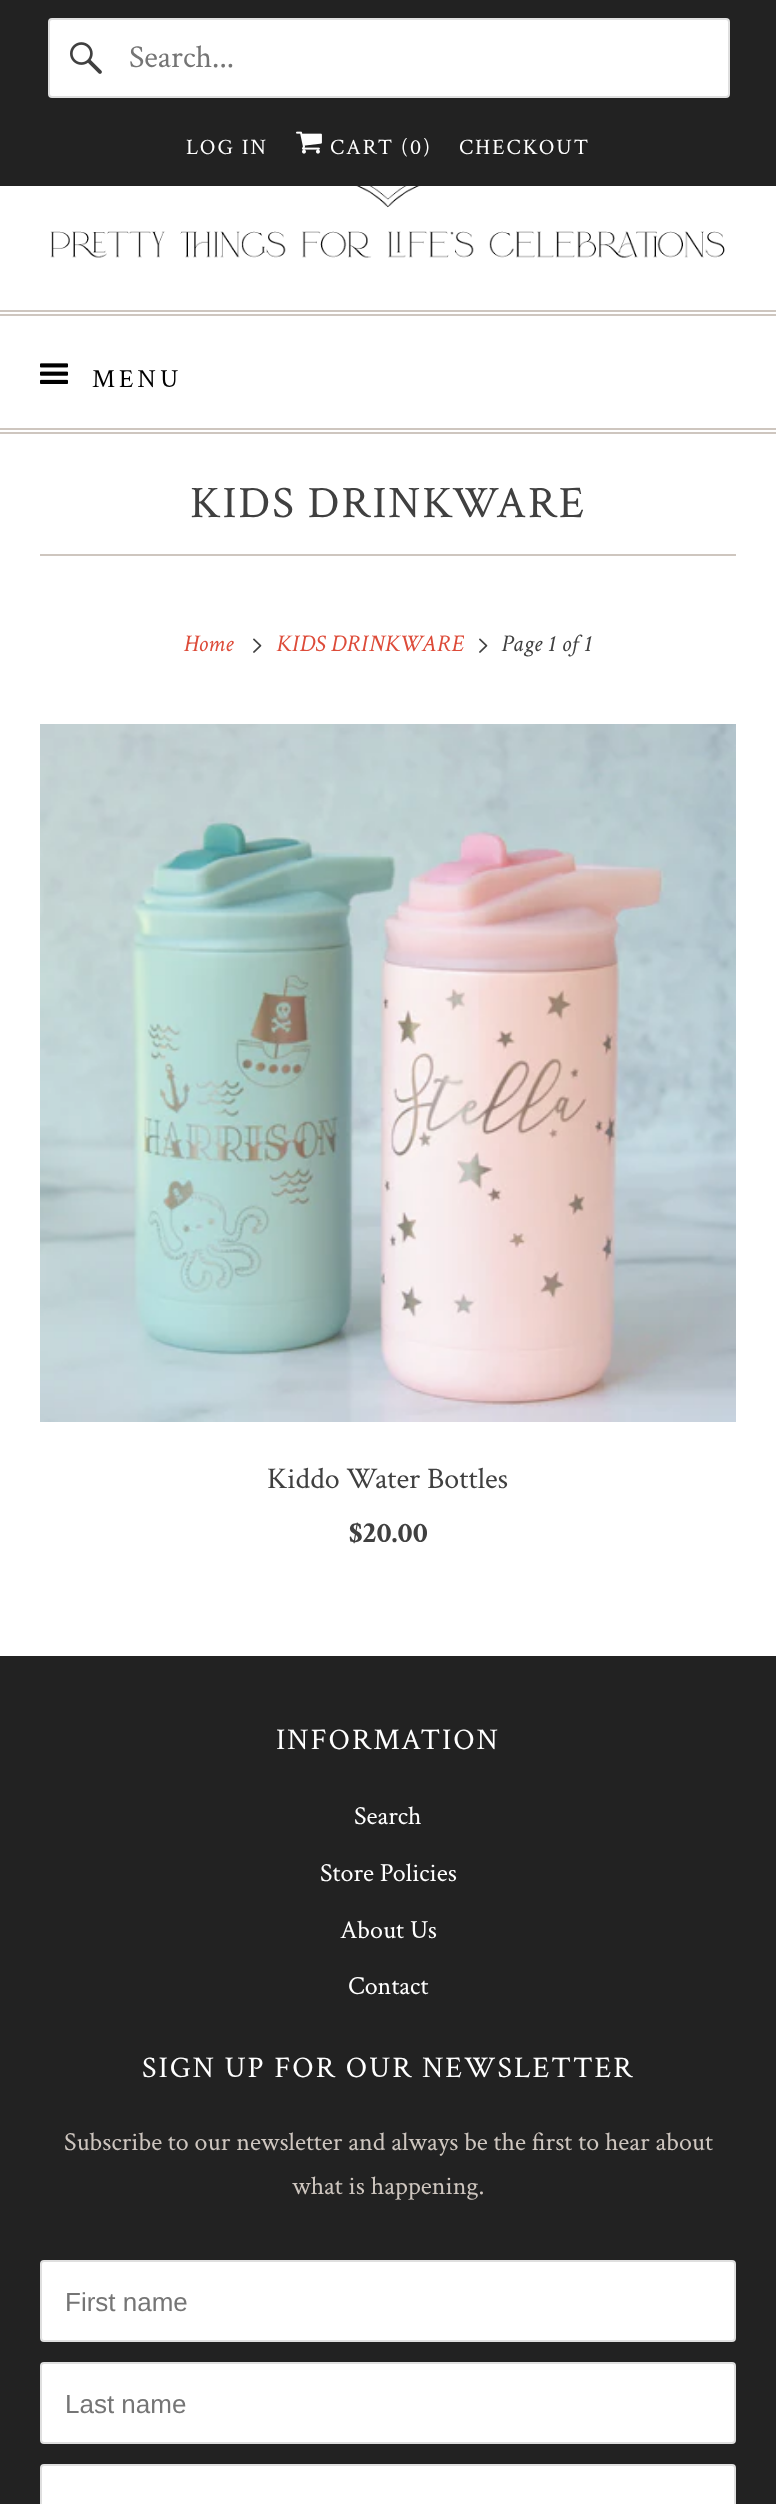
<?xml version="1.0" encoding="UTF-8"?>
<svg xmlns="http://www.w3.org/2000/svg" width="776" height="2504">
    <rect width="100%" height="100%" fill="#FFFFFF"/>
    <rect x="0" y="0" width="776" height="186" fill="#222222"/>
    <rect x="49" y="19" width="680" height="78" rx="3" fill="#FFFFFF" stroke="#DFDFDF" stroke-width="2"/>
    <image x="70" y="42" width="32" height="32" href="img_01.png"/>
    <text x="129" y="67" font-family="Crimson Text" font-size="32" fill="#757575">Search...</text>
    <text x="186" y="154" font-family="Crimson Text" font-size="22" letter-spacing="2" fill="#FFFFFF">LOG IN</text>
    <image x="296" y="131" width="26" height="23" href="img_02.png"/>
    <text x="330" y="154" font-family="Crimson Text" font-size="22" letter-spacing="2" fill="#FFFFFF">CART (0)</text>
    <text x="459" y="154" font-family="Crimson Text" font-size="22" letter-spacing="2" fill="#FFFFFF">CHECKOUT</text>
    <image x="50" y="186" width="675" height="72" href="img_03.png"/>
    <rect x="0" y="310" width="776" height="2" fill="#CEC6BF"/>
    <rect x="0" y="314" width="776" height="2" fill="#CEC6BF"/>
    <rect x="0" y="428" width="776" height="2" fill="#CEC6BF"/>
    <rect x="0" y="432" width="776" height="2" fill="#CEC6BF"/>
    <image x="40" y="363" width="28" height="21" href="img_04.png"/>
    <text x="92" y="387" font-family="Crimson Text" font-size="26" letter-spacing="4" fill="#000000">MENU</text>
    <rect x="40" y="554" width="696" height="2" fill="#CEC6BF"/>
    <text x="190" y="517" font-family="Crimson Text" font-size="45" letter-spacing="2" fill="#404040">KIDS DRINKWARE</text>
    <text x="184" y="651" font-family="Crimson Text" font-size="24" font-style="italic" fill="#DD4B39">Home</text>
    <image x="253" y="638" width="9" height="15" href="img_05.png"/>
    <text x="276" y="651" font-family="Crimson Text" font-size="24" font-style="italic" fill="#DD4B39">KIDS DRINKWARE</text>
    <image x="479" y="638" width="9" height="15" href="img_05.png"/>
    <text x="501" y="651" font-family="Crimson Text" font-size="24" font-style="italic" fill="#404040">Page 1 of 1</text>
    <image x="40" y="724" width="696" height="698" href="img_06.png"/>
    <text x="267" y="1488" font-family="Crimson Text" font-size="30" fill="#404040">Kiddo Water Bottles</text>
    <text x="349" y="1542" font-family="Crimson Text" font-size="30" font-weight="700" fill="#404040">$20.00</text>
    <rect x="0" y="1656" width="776" height="848" fill="#222222"/>
    <text x="276" y="1749" font-family="Crimson Text" font-size="30" letter-spacing="2" fill="#FFFFFF">INFORMATION</text>
    <text x="354" y="1824" font-family="Crimson Text" font-size="26" fill="#FFFFFF">Search</text>
    <text x="320" y="1881" font-family="Crimson Text" font-size="26" fill="#FFFFFF">Store Policies</text>
    <text x="340" y="1938" font-family="Crimson Text" font-size="26" fill="#FFFFFF">About Us</text>
    <text x="348" y="1994" font-family="Crimson Text" font-size="26" fill="#FFFFFF">Contact</text>
    <text x="142" y="2077" font-family="Crimson Text" font-size="30" letter-spacing="2" fill="#FFFFFF">SIGN UP FOR OUR NEWSLETTER</text>
    <text x="64" y="2150" font-family="Crimson Text" font-size="26" fill="#CEC6BF">Subscribe to our newsletter and always be the first to hear about</text>
    <text x="292" y="2194" font-family="Crimson Text" font-size="26" fill="#CEC6BF">what is happening.</text>
    <rect x="41" y="2261" width="694" height="80" rx="3" fill="#FFFFFF" stroke="#DFDFDF" stroke-width="2"/>
    <text x="65" y="2311" font-family="Liberation Sans" font-size="26" fill="#757575">First name</text>
    <rect x="41" y="2363" width="694" height="80" rx="3" fill="#FFFFFF" stroke="#DFDFDF" stroke-width="2"/>
    <text x="65" y="2413" font-family="Liberation Sans" font-size="26" fill="#757575">Last name</text>
    <rect x="41" y="2465" width="694" height="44" rx="3" fill="#FFFFFF" stroke="#DFDFDF" stroke-width="2"/>
</svg>
